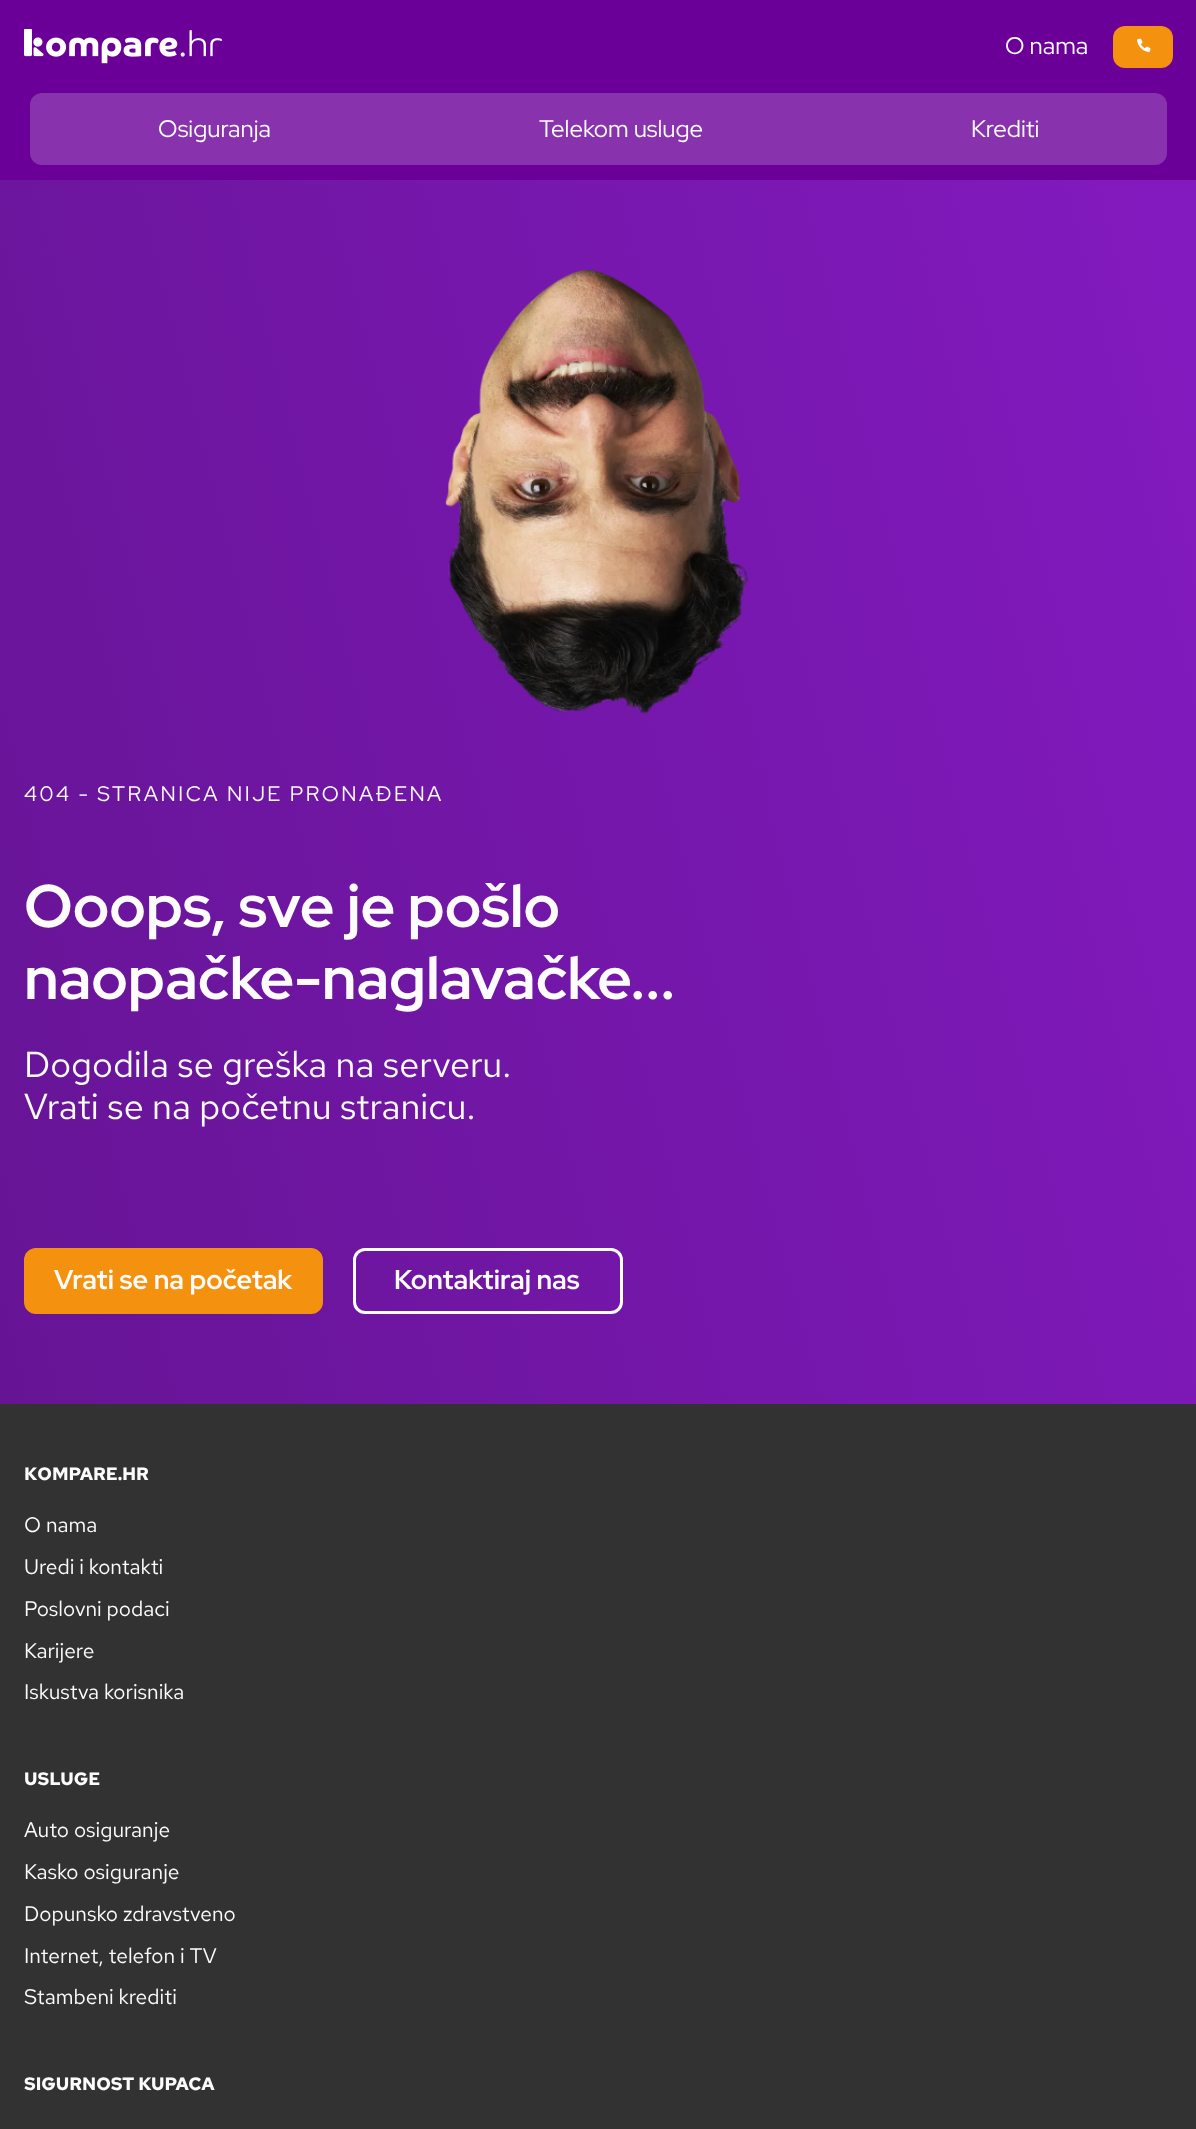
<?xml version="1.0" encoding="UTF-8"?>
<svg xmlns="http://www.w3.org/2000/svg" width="1196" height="2129">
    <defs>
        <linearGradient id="g1" gradientUnits="userSpaceOnUse" x1="-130" y1="884" x2="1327" y2="520"><stop offset="0" stop-color="#661495"/><stop offset="1" stop-color="#841AC1"/></linearGradient>
    </defs>
    <rect width="100%" height="100%" fill="#323232"/>
    <rect x="0" y="0" width="1196" height="180" fill="#6A0098"/>
    <rect x="1113" y="26" width="60" height="42" rx="12" fill="#F4910F"/>
    <image x="1137" y="38" width="14" height="15" href="img_01.png"/>
    <rect x="30" y="93" width="1137" height="72" rx="12" fill="#8833AD"/>
    <image x="24" y="29" width="198" height="35" href="img_02.png"/>
    <text x="1005" y="54" font-family="Red Hat Display" font-size="24" fill="#FCFCFC">O nama</text>
    <text x="158" y="137" font-family="Red Hat Display" font-size="24" fill="#FCFCFC">Osiguranja</text>
    <text x="539" y="137" font-family="Red Hat Display" font-size="24" fill="#FCFCFC">Telekom usluge</text>
    <text x="971" y="137" font-family="Red Hat Display" font-size="24" fill="#FCFCFC">Krediti</text>
    <rect x="0" y="180" width="1196" height="1224" fill="url(#g1)"/>
    <image x="445" y="270" width="304" height="447" href="img_03.png"/>
    <text x="24" y="801" font-family="Red Hat Display" font-size="21" letter-spacing="2.5" fill="#FCFCFC">404 - STRANICA NIJE PRONAĐENA</text>
    <text font-family="Red Hat Display" font-size="60" font-weight="700" fill="#FCFCFC">
        <tspan x="24" y="927">Ooops, sve je pošlo</tspan>
        <tspan x="24" y="999">naopačke-naglavačke...</tspan>
    </text>
    <text font-family="Red Hat Text" font-size="36" fill="#FCFCFC">
        <tspan x="24" y="1077">Dogodila se greška na serveru.</tspan>
        <tspan x="24" y="1119">Vrati se na početnu stranicu.</tspan>
    </text>
    <rect x="25.5" y="1249.5" width="296" height="63" rx="10.5" fill="#F4910F" stroke="#F4910F" stroke-width="3"/>
    <text x="54" y="1289" font-family="Red Hat Display" font-size="27" font-weight="700" fill="#FCFCFC">Vrati se na početak</text>
    <rect x="354.5" y="1249.5" width="267" height="63" rx="10.5" fill="none" stroke="#FFFFFF" stroke-width="3"/>
    <text x="394" y="1289" font-family="Red Hat Display" font-size="27" font-weight="700" fill="#FCFCFC">Kontaktiraj nas</text>
    <text x="24" y="1480" font-family="Red Hat Text" font-size="18" font-weight="700" fill="#FCFCFC">KOMPARE.HR</text>
    <text x="24" y="1532" font-family="Red Hat Text" font-size="21" fill="#FCFCFC">O nama</text>
    <text x="24" y="1574" font-family="Red Hat Text" font-size="21" fill="#FCFCFC">Uredi i kontakti</text>
    <text x="24" y="1616" font-family="Red Hat Text" font-size="21" fill="#FCFCFC">Poslovni podaci</text>
    <text font-family="Red Hat Text" font-size="21" fill="#FCFCFC">
        <tspan x="24" y="1658">Karijere</tspan>
        <tspan x="24" y="1699">Iskustva korisnika</tspan>
    </text>
    <text x="24" y="1785" font-family="Red Hat Text" font-size="18" font-weight="700" fill="#FCFCFC">USLUGE</text>
    <text x="24" y="1837" font-family="Red Hat Text" font-size="21" fill="#FCFCFC">Auto osiguranje</text>
    <text x="24" y="1879" font-family="Red Hat Text" font-size="21" fill="#FCFCFC">Kasko osiguranje</text>
    <text x="24" y="1921" font-family="Red Hat Text" font-size="21" fill="#FCFCFC">Dopunsko zdravstveno</text>
    <text font-family="Red Hat Text" font-size="21" fill="#FCFCFC">
        <tspan x="24" y="1963">Internet, telefon i TV</tspan>
        <tspan x="24" y="2004">Stambeni krediti</tspan>
    </text>
    <text x="24" y="2090" font-family="Red Hat Text" font-size="18" font-weight="700" fill="#FCFCFC">SIGURNOST KUPACA</text>
</svg>
